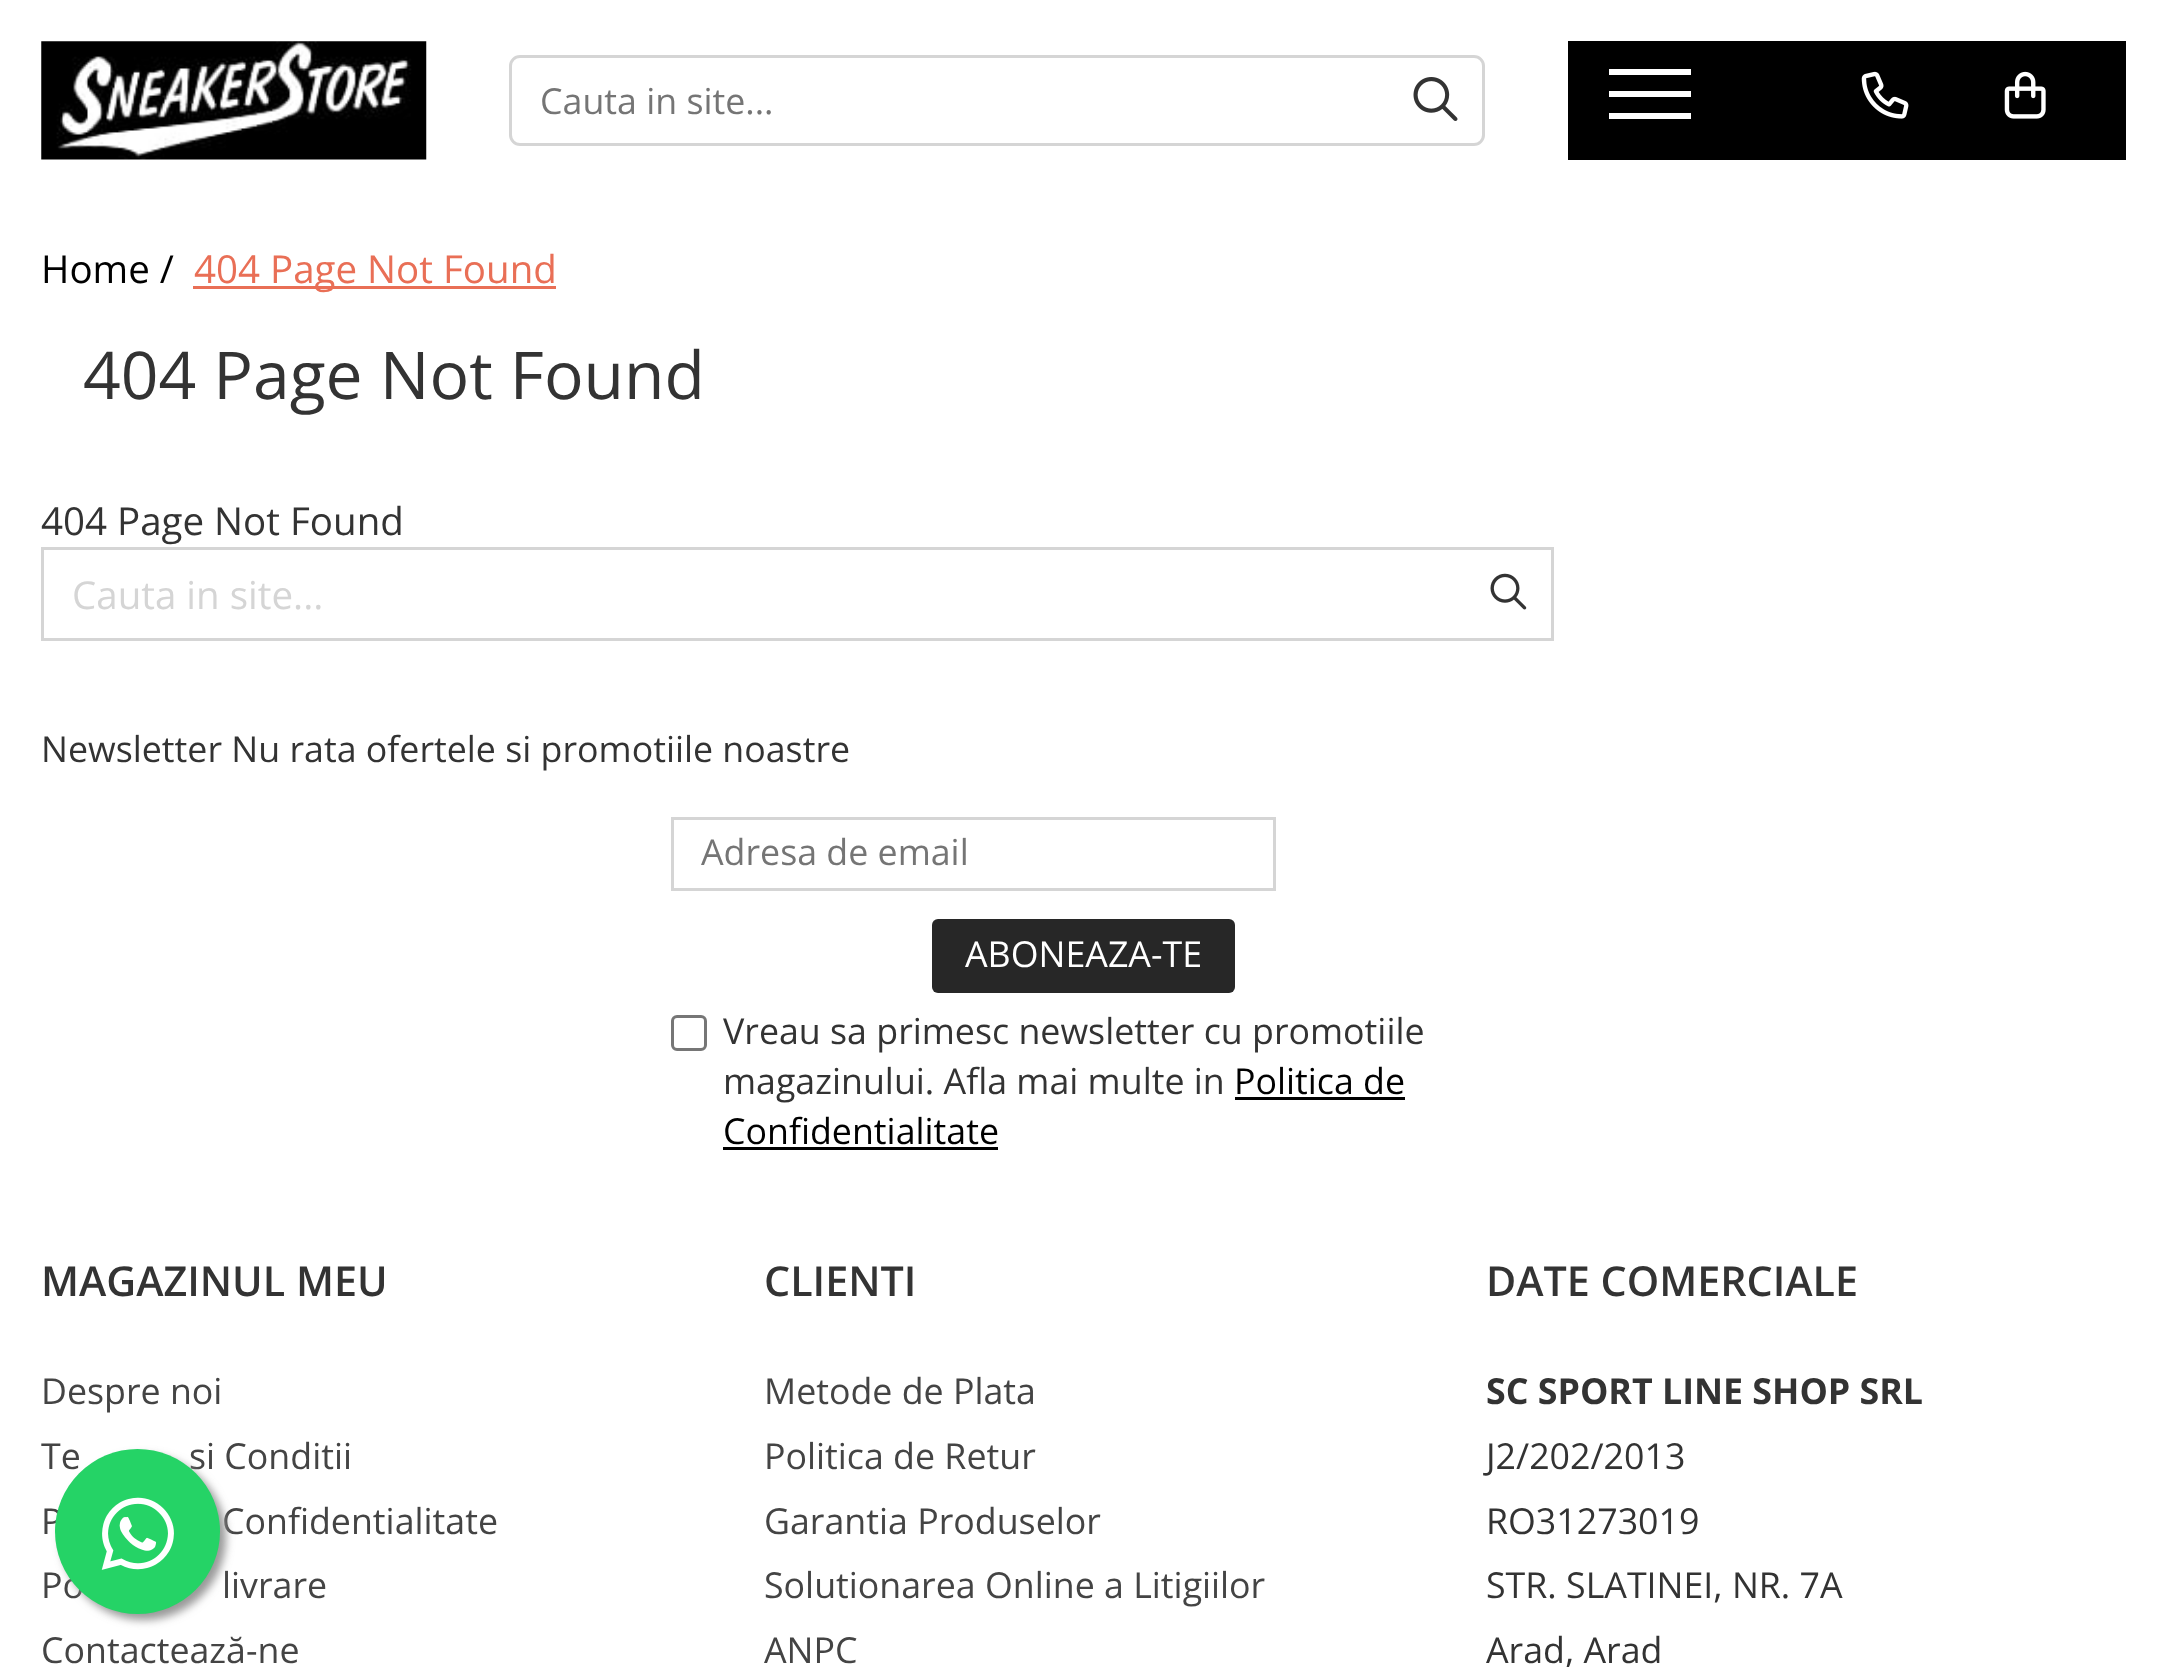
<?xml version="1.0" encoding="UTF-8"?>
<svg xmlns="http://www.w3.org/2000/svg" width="2165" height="1667">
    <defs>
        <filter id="blur1" x="-50%" y="-200%" width="200%" height="500%"><feGaussianBlur stdDeviation="4"/></filter>
    </defs>
    <rect width="100%" height="100%" fill="#FFFFFF"/>
    <image x="41" y="41" width="386" height="119" href="img_01.png"/>
    <rect x="510.5" y="56.5" width="973" height="88" rx="9.5" fill="none" stroke="#D5D5D5" stroke-width="3"/>
    <text x="540" y="114" font-family="Open Sans" font-size="35.75" fill="#757575">Cauta in site...</text>
    <image x="1413" y="77" width="45" height="44" href="img_02.png"/>
    <rect x="1568" y="41" width="558" height="119" fill="#000000"/>
    <rect x="1609" y="91" width="82" height="6" fill="#FFFFFF"/>
    <rect x="1609" y="69" width="82" height="6" fill="#FFFFFF"/>
    <rect x="1609" y="113" width="82" height="6" fill="#FFFFFF"/>
    <image x="1861" y="71" width="48" height="48" href="img_03.png"/>
    <image x="2004" y="71" width="42" height="48" href="img_04.png"/>
    <text x="41" y="283" font-family="Open Sans" font-size="38.5" fill="#000000">Home /</text>
    <rect x="193" y="286" width="363" height="3" fill="#E96F56"/>
    <text x="194" y="283" font-family="Open Sans" font-size="38.5" fill="#E96F56">404 Page Not Found</text>
    <text x="83" y="399" font-family="Open Sans" font-size="66" fill="#333333">404 Page Not Found</text>
    <text x="41" y="535" font-family="Open Sans" font-size="38.5" fill="#333333">404 Page Not Found</text>
    <rect x="42.5" y="548.5" width="1510" height="91" fill="none" stroke="#D5D5D5" stroke-width="3"/>
    <text x="72" y="609" font-family="Open Sans" font-size="38.5" fill="#D5D5D5">Cauta in site...</text>
    <image x="1490" y="573" width="37" height="37" href="img_05.png"/>
    <text x="41" y="762" font-family="Open Sans" font-size="35.75" fill="#333333">Newsletter Nu rata ofertele si promotiile noastre</text>
    <rect x="672.5" y="818.5" width="602" height="71" fill="none" stroke="#D5D5D5" stroke-width="3"/>
    <text x="701" y="865" font-family="Open Sans" font-size="35.75" fill="#757575">Adresa de email</text>
    <rect x="932" y="919" width="303" height="74" rx="6" fill="#272727"/>
    <text x="965" y="967" font-family="Open Sans" font-size="35.75" fill="#FFFFFF">ABONEAZA-TE</text>
    <rect x="672.5" y="1016.5" width="33" height="33" rx="4.5" fill="none" stroke="#767676" stroke-width="3"/>
    <text font-family="Open Sans" font-size="35.75" fill="#333333">
        <tspan x="723" y="1044">Vreau sa primesc newsletter cu promotiile</tspan>
        <tspan x="723" y="1094">magazinului. Afla mai multe in</tspan>
    </text>
    <text x="1234" y="1094" font-family="Open Sans" font-size="35.75" fill="#000000">Politica de</text>
    <rect x="1235" y="1097" width="170" height="3" fill="#000000"/>
    <text x="723" y="1144" font-family="Open Sans" font-size="35.75" fill="#000000">Confidentialitate</text>
    <rect x="723" y="1147" width="275" height="3" fill="#000000"/>
    <text x="41" y="1296" font-family="Open Sans" font-size="41.25" font-weight="600" fill="#333333">MAGAZINUL MEU</text>
    <text font-family="Open Sans" font-size="35.75" fill="#444444">
        <tspan x="41" y="1404">Despre noi</tspan>
        <tspan x="41" y="1469">Te</tspan>
    </text>
    <text x="189" y="1469" font-family="Open Sans" font-size="35.75" fill="#444444">si Conditii</text>
    <text x="41" y="1534" font-family="Open Sans" font-size="35.75" fill="#444444">P</text>
    <text x="222" y="1534" font-family="Open Sans" font-size="35.75" fill="#444444">Confidentialitate</text>
    <text x="41" y="1598" font-family="Open Sans" font-size="35.75" fill="#444444">Po</text>
    <text x="222" y="1598" font-family="Open Sans" font-size="35.75" fill="#444444">livrare</text>
    <text x="41" y="1663" font-family="Open Sans" font-size="35.75" fill="#444444">Contactează-ne</text>
    <text x="764" y="1296" font-family="Open Sans" font-size="41.25" font-weight="600" fill="#333333">CLIENTI</text>
    <text font-family="Open Sans" font-size="35.75" fill="#444444">
        <tspan x="764" y="1404">Metode de Plata</tspan>
        <tspan x="764" y="1469">Politica de Retur</tspan>
        <tspan x="764" y="1534">Garantia Produselor</tspan>
        <tspan x="764" y="1598">Solutionarea Online a Litigiilor</tspan>
        <tspan x="764" y="1663">ANPC</tspan>
    </text>
    <text x="1486" y="1296" font-family="Open Sans" font-size="41.25" font-weight="600" fill="#333333">DATE COMERCIALE</text>
    <text x="1486" y="1404" font-family="Open Sans" font-size="35.75" font-weight="700" fill="#333333">SC SPORT LINE SHOP SRL</text>
    <text font-family="Open Sans" font-size="35.75" fill="#333333">
        <tspan x="1486" y="1469">J2/202/2013</tspan>
        <tspan x="1486" y="1534">RO31273019</tspan>
        <tspan x="1486" y="1598">STR. SLATINEI, NR. 7A</tspan>
        <tspan x="1486" y="1663">Arad, Arad</tspan>
    </text>
    <rect x="61" y="1455" width="165" height="165" rx="82.5" fill="#999999" filter="url(#blur1)"/>
    <circle cx="137.5" cy="1531.5" r="82.5" fill="#25D366"/>
    <image x="101" y="1497" width="73" height="73" href="img_06.png"/>
</svg>
